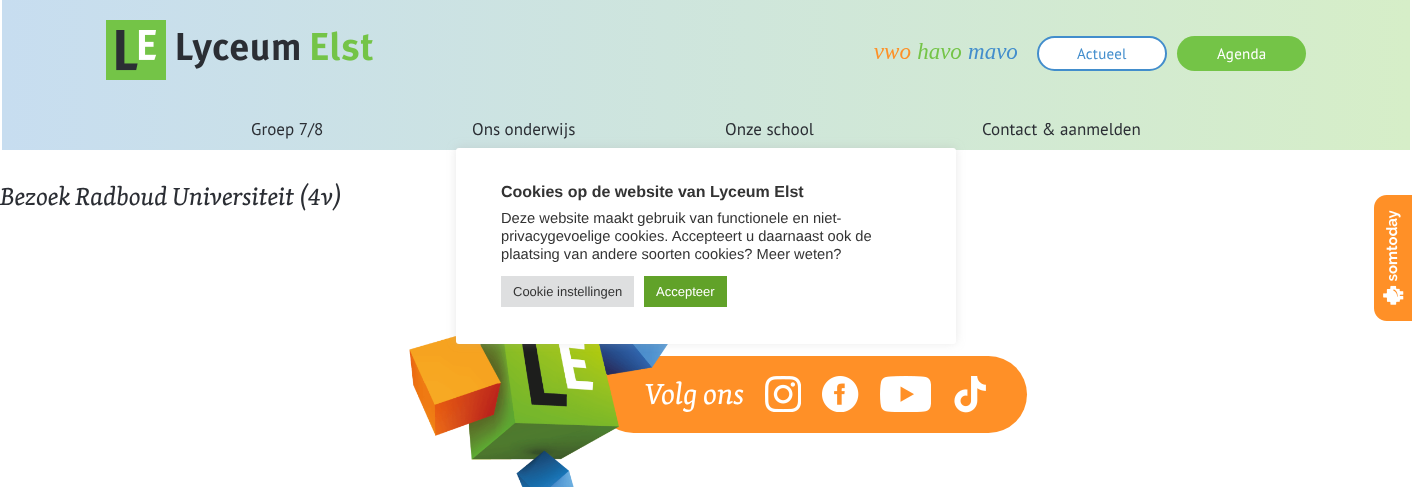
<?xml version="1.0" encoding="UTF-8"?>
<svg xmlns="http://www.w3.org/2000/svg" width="1412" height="487">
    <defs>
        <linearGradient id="g1" gradientUnits="userSpaceOnUse" x1="1410" y1="409" x2="2.5" y2="409"><stop offset="0" stop-color="#D6EEC8"/><stop offset="1" stop-color="#C7DDF0"/></linearGradient>
        <filter id="blur1" x="-50%" y="-200%" width="200%" height="500%"><feGaussianBlur stdDeviation="5"/></filter>
    </defs>
    <rect width="100%" height="100%" fill="#FFFFFF"/>
    <rect x="2" y="0" width="1408" height="150" fill="url(#g1)"/>
    <image x="106" y="20" width="267" height="60" href="img_01.png"/>
    <image x="874" y="43" width="143" height="16" href="img_02.png"/>
    <rect x="1038" y="37" width="128" height="33" rx="16.5" fill="#FFFFFF" stroke="#428DCC" stroke-width="2"/>
    <text x="1077" y="59" font-family="PT Sans" font-size="15" letter-spacing="0.25" fill="#428DCC">Actueel</text>
    <rect x="1177" y="36" width="129" height="35" rx="17.5" fill="#74C447"/>
    <text x="1217" y="59" font-family="PT Sans" font-size="15" letter-spacing="0.25" fill="#FFFFFF">Agenda</text>
    <text x="251" y="135" font-family="PT Sans" font-size="17" fill="#2B2E34">Groep 7/8</text>
    <text x="472" y="135" font-family="PT Sans" font-size="17" fill="#2B2E34">Ons onderwijs</text>
    <text x="725" y="135" font-family="PT Sans" font-size="17" fill="#2B2E34">Onze school</text>
    <text x="982" y="135" font-family="PT Sans" font-size="17" fill="#2B2E34">Contact &amp; aanmelden</text>
    <text x="0" y="205" font-family="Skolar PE" font-size="25.5" font-style="italic" fill="#2B2E34">Bezoek Radboud Universiteit (4v)</text>
    <rect x="595" y="356" width="432" height="77" rx="38.5" fill="#FF9027"/>
    <text x="645" y="404" font-family="Skolar PE" font-size="30" font-style="italic" fill="#FFFFFF">Volg ons</text>
    <image x="409" y="336" width="259" height="151" href="img_04.png"/>
    <rect x="456" y="147" width="500" height="196" rx="3" fill="#ACABAB" fill-opacity="0.3" filter="url(#blur1)"/>
    <rect x="456" y="148" width="500" height="196" rx="3" fill="#FFFFFF"/>
    <text x="501" y="197" font-family="Liberation Sans" font-size="16" font-weight="700" fill="#333333">Cookies op de website van Lyceum Elst</text>
    <text font-family="Liberation Sans" font-size="14.7" fill="#333333">
        <tspan x="501" y="223">Deze website maakt gebruik van functionele en niet-</tspan>
        <tspan x="501" y="241">privacygevoelige cookies. Accepteert u daarnaast ook de</tspan>
        <tspan x="501" y="259">plaatsing van andere soorten cookies? Meer weten?</tspan>
    </text>
    <rect x="501" y="276" width="133" height="31" fill="#DEDFE0"/>
    <text x="513" y="296" font-family="Liberation Sans" font-size="13" fill="#333333">Cookie instellingen</text>
    <rect x="644" y="276" width="83" height="31" fill="#61A229"/>
    <text x="656" y="296" font-family="Liberation Sans" font-size="13" fill="#FFFFFF">Accepteer</text>
    <image x="1374" y="195" width="38" height="126" href="img_03.png"/>
    <image x="765" y="376" width="36" height="36" href="img_05.png"/>
    <image x="822" y="376" width="37" height="36" href="img_06.png"/>
    <image x="880" y="376" width="51" height="36" href="img_07.png"/>
    <image x="954" y="376" width="32" height="37" href="img_08.png"/>
</svg>
